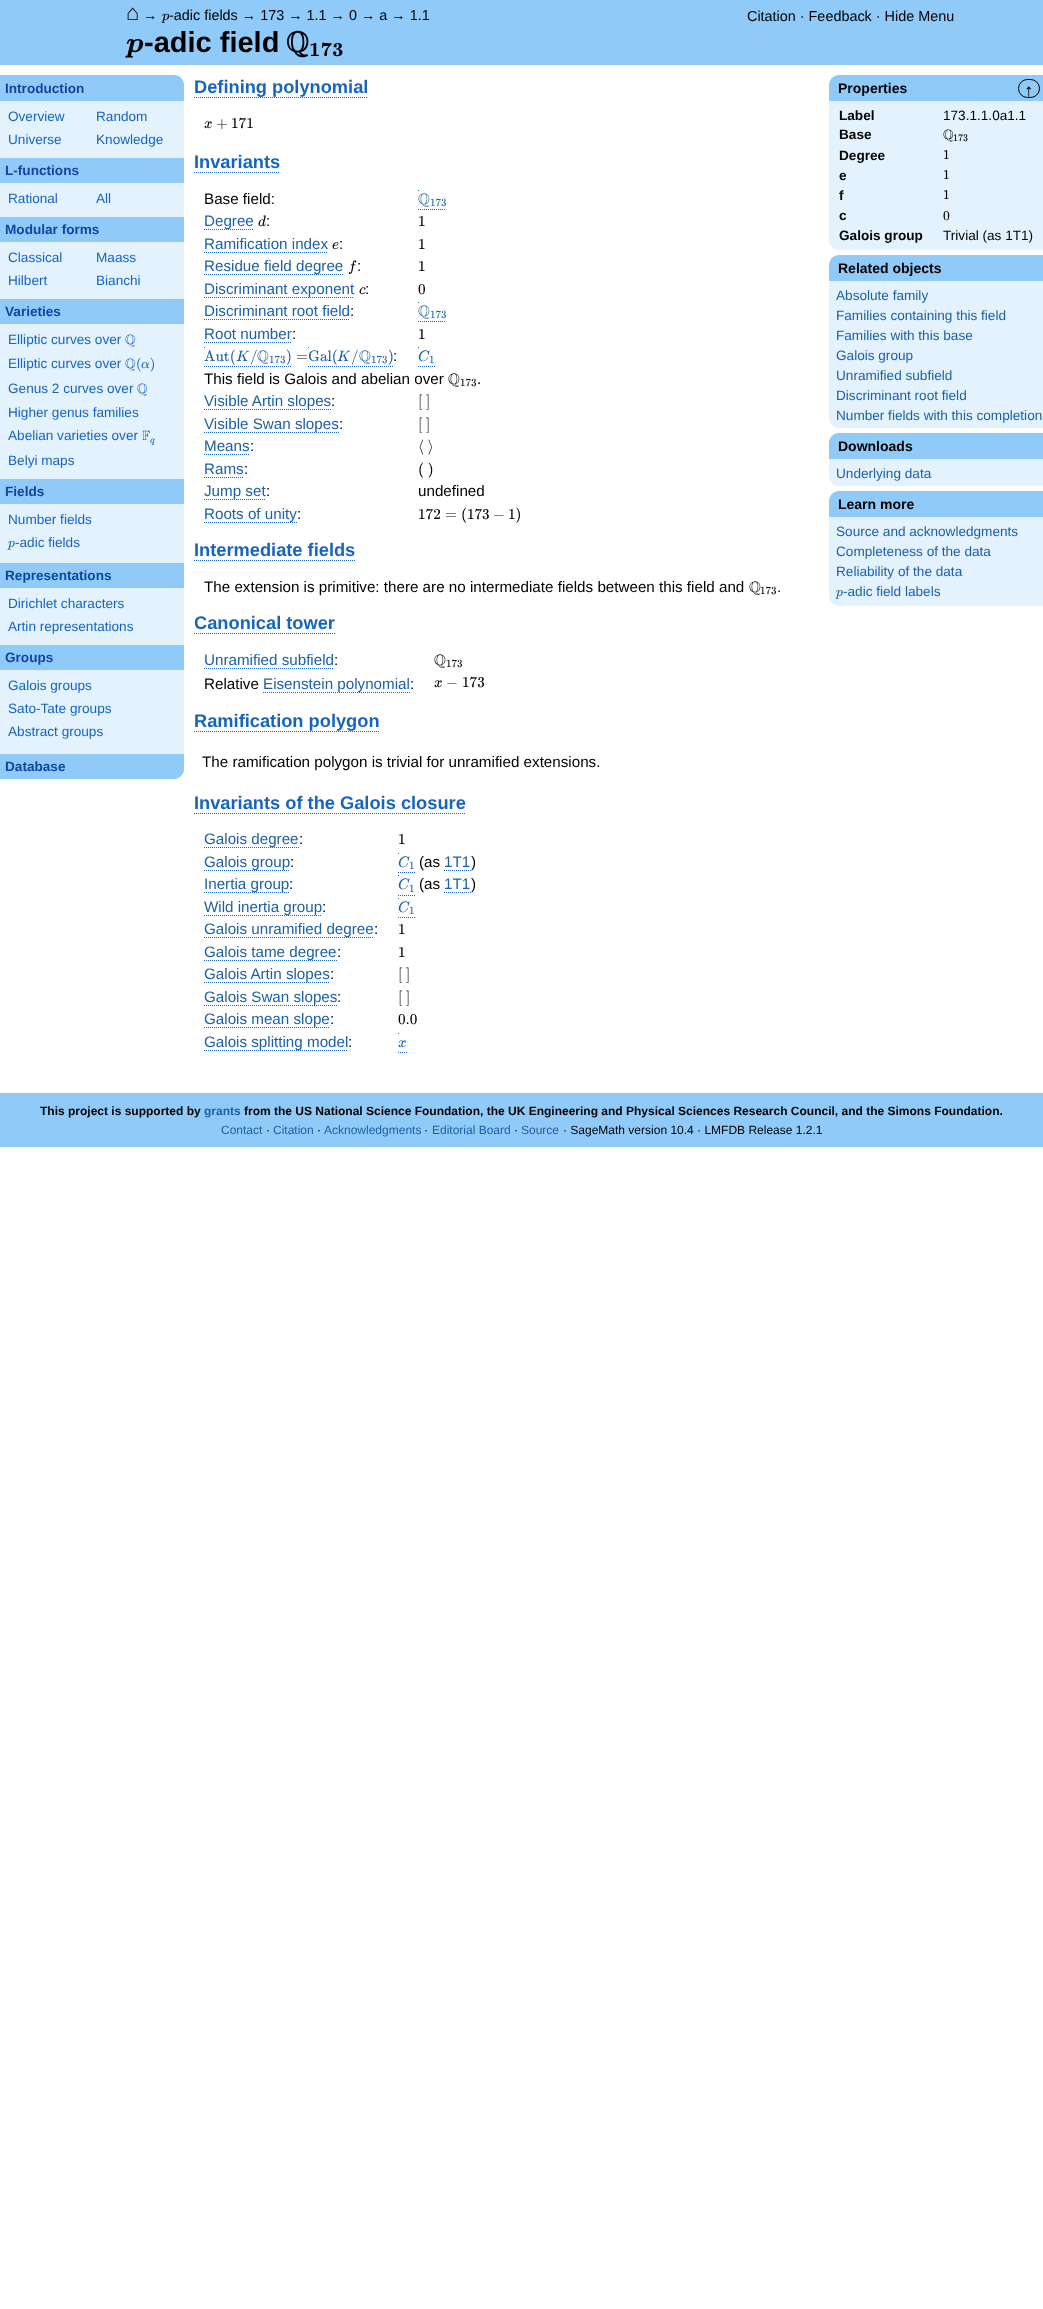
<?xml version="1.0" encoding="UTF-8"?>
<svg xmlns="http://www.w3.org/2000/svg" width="1043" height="2309">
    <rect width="100%" height="100%" fill="#FFFFFF"/>
    <rect x="0" y="0" width="1043" height="65" fill="#90CAF9"/>
    <text x="126" y="20" font-family="Liberation Sans" font-size="22" fill="#000000">⌂</text>
    <text x="143" y="20" font-family="Liberation Sans" font-size="14.4" fill="#000000">→</text>
    <text x="169" y="20" font-family="Liberation Sans" font-size="14.4" fill="#000000">-adic fields → 173 → 1.1 → 0 → a → 1.1</text>
    <text x="162" y="20" font-family="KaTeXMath" font-size="14.4" font-style="italic" fill="#000000">p</text>
    <text x="747" y="21" font-family="Liberation Sans" font-size="14.4" fill="#000000">Citation · Feedback · Hide Menu</text>
    <text x="126" y="52" font-family="KaTeXMath" font-size="29" font-weight="700" font-style="italic" fill="#000000">p</text>
    <text x="144" y="52" font-family="Liberation Sans" font-size="29" font-weight="700" fill="#000000">-adic field</text>
    <text x="286" y="52" font-family="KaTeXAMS" font-size="29" font-weight="700" fill="#000000">Q</text>
    <text x="309" y="56" font-family="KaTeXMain" font-size="20" font-weight="700" fill="#000000">173</text>
    <path d="M 0 75 H 174 C 179.5 75 184 79.5 184 85 V 769 C 184 774.5 179.5 779 174 779 H 0 Z" fill="#E3F2FD"/>
    <path d="M 0 75 H 174 C 179.5 75 184 79.5 184 85 V 101 H 0 Z" fill="#90CAF9"/>
    <text x="5" y="93" font-family="Liberation Sans" font-size="13.6" font-weight="700" fill="#0D47A1">Introduction</text>
    <text x="8" y="121" font-family="Liberation Sans" font-size="13.6" fill="#1565C0">Overview</text>
    <text x="96" y="121" font-family="Liberation Sans" font-size="13.6" fill="#1565C0">Random</text>
    <text x="8" y="144" font-family="Liberation Sans" font-size="13.6" fill="#1565C0">Universe</text>
    <text x="96" y="144" font-family="Liberation Sans" font-size="13.6" fill="#1565C0">Knowledge</text>
    <rect x="0" y="158" width="184" height="25" fill="#90CAF9"/>
    <text x="5" y="175" font-family="Liberation Sans" font-size="13.6" font-weight="700" fill="#0D47A1">L-functions</text>
    <text x="8" y="203" font-family="Liberation Sans" font-size="13.6" fill="#1565C0">Rational</text>
    <text x="96" y="203" font-family="Liberation Sans" font-size="13.6" fill="#1565C0">All</text>
    <rect x="0" y="217" width="184" height="25" fill="#90CAF9"/>
    <text x="5" y="234" font-family="Liberation Sans" font-size="13.6" font-weight="700" fill="#0D47A1">Modular forms</text>
    <text x="8" y="262" font-family="Liberation Sans" font-size="13.6" fill="#1565C0">Classical</text>
    <text x="96" y="262" font-family="Liberation Sans" font-size="13.6" fill="#1565C0">Maass</text>
    <text x="8" y="285" font-family="Liberation Sans" font-size="13.6" fill="#1565C0">Hilbert</text>
    <text x="96" y="285" font-family="Liberation Sans" font-size="13.6" fill="#1565C0">Bianchi</text>
    <rect x="0" y="299" width="184" height="25" fill="#90CAF9"/>
    <text x="5" y="316" font-family="Liberation Sans" font-size="13.6" font-weight="700" fill="#0D47A1">Varieties</text>
    <text x="8" y="344" font-family="Liberation Sans" font-size="13.6" fill="#1565C0">Elliptic curves over</text>
    <text x="125" y="344" font-family="KaTeXAMS" font-size="13.6" fill="#1565C0">Q</text>
    <text x="8" y="368" font-family="Liberation Sans" font-size="13.6" fill="#1565C0">Elliptic curves over</text>
    <text x="125" y="368" font-family="KaTeXAMS" font-size="13.6" fill="#1565C0">Q</text>
    <text x="136" y="368" font-family="KaTeXMain" font-size="13.6" fill="#1565C0">(</text>
    <text x="141" y="368" font-family="KaTeXMath" font-size="13.6" font-style="italic" fill="#1565C0">α</text>
    <text x="150" y="368" font-family="KaTeXMain" font-size="13.6" fill="#1565C0">)</text>
    <text x="8" y="393" font-family="Liberation Sans" font-size="13.6" fill="#1565C0">Genus 2 curves over</text>
    <text x="137" y="393" font-family="KaTeXAMS" font-size="13.6" fill="#1565C0">Q</text>
    <text font-family="Liberation Sans" font-size="13.6" fill="#1565C0">
        <tspan x="8" y="417">Higher genus families</tspan>
        <tspan x="8" y="440">Abelian varieties over</tspan>
    </text>
    <text x="142" y="440" font-family="KaTeXAMS" font-size="13.6" fill="#1565C0">F</text>
    <text x="150" y="443" font-family="KaTeXMath" font-size="10" font-style="italic" fill="#1565C0">q</text>
    <text x="8" y="465" font-family="Liberation Sans" font-size="13.6" fill="#1565C0">Belyi maps</text>
    <rect x="0" y="479" width="184" height="25" fill="#90CAF9"/>
    <text x="5" y="496" font-family="Liberation Sans" font-size="13.6" font-weight="700" fill="#0D47A1">Fields</text>
    <text x="8" y="524" font-family="Liberation Sans" font-size="13.6" fill="#1565C0">Number fields</text>
    <text x="8" y="547" font-family="KaTeXMath" font-size="13.6" font-style="italic" fill="#1565C0">p</text>
    <text x="15" y="547" font-family="Liberation Sans" font-size="13.6" fill="#1565C0">-adic fields</text>
    <rect x="0" y="563" width="184" height="25" fill="#90CAF9"/>
    <text x="5" y="580" font-family="Liberation Sans" font-size="13.6" font-weight="700" fill="#0D47A1">Representations</text>
    <text font-family="Liberation Sans" font-size="13.6" fill="#1565C0">
        <tspan x="8" y="608">Dirichlet characters</tspan>
        <tspan x="8" y="631">Artin representations</tspan>
    </text>
    <rect x="0" y="645" width="184" height="25" fill="#90CAF9"/>
    <text x="5" y="662" font-family="Liberation Sans" font-size="13.6" font-weight="700" fill="#0D47A1">Groups</text>
    <text font-family="Liberation Sans" font-size="13.6" fill="#1565C0">
        <tspan x="8" y="690">Galois groups</tspan>
        <tspan x="8" y="713">Sato-Tate groups</tspan>
        <tspan x="8" y="736">Abstract groups</tspan>
    </text>
    <path d="M 0 754 H 184 V 769 C 184 774.5 179.5 779 174 779 H 0 Z" fill="#90CAF9"/>
    <text x="5" y="771" font-family="Liberation Sans" font-size="13.6" font-weight="700" fill="#0D47A1">Database</text>
    <text x="194" y="93" font-family="Liberation Sans" font-size="18.25" font-weight="700" fill="#1565C0">Defining polynomial</text>
    <path d="M 194 97.5 H 368" fill="none" stroke="#1565C0" stroke-dasharray="1 1"/>
    <text x="204" y="128" font-family="KaTeXMath" font-size="15.2" font-style="italic" fill="#000000">x</text>
    <text x="216" y="128" font-family="KaTeXMain" font-size="15.2" fill="#000000">+</text>
    <text x="231" y="128" font-family="KaTeXMain" font-size="15.2" fill="#000000">171</text>
    <text x="194" y="168" font-family="Liberation Sans" font-size="18.25" font-weight="700" fill="#1565C0">Invariants</text>
    <path d="M 194 172.5 H 280" fill="none" stroke="#1565C0" stroke-dasharray="1 1"/>
    <text x="204" y="204" font-family="Liberation Sans" font-size="15.2" fill="#000000">Base field:</text>
    <rect x="418" y="190" width="1" height="1" fill="#1565C0"/>
    <path d="M 418 209.5 H 446" fill="none" stroke="#1565C0" stroke-dasharray="1 1"/>
    <text x="418" y="204" font-family="KaTeXAMS" font-size="15.2" fill="#1C61A6">Q</text>
    <text x="430" y="206" font-family="KaTeXMain" font-size="11" fill="#1C61A6">173</text>
    <path d="M 204 229.5 H 254" fill="none" stroke="#1565C0" stroke-dasharray="1 1"/>
    <text x="204" y="226" font-family="Liberation Sans" font-size="15.2" fill="#1C61A6">Degree</text>
    <text x="258" y="226" font-family="KaTeXMath" font-size="15.2" font-style="italic" fill="#000000">d</text>
    <text x="266" y="226" font-family="Liberation Sans" font-size="15.2" fill="#000000">:</text>
    <text x="418" y="226" font-family="KaTeXMain" font-size="15.2" fill="#000000">1</text>
    <text x="204" y="249" font-family="Liberation Sans" font-size="15.2" fill="#1C61A6">Ramification index</text>
    <path d="M 204 252.5 H 328" fill="none" stroke="#1565C0" stroke-dasharray="1 1"/>
    <text x="332" y="249" font-family="KaTeXMath" font-size="15.2" font-style="italic" fill="#000000">e</text>
    <text x="339" y="249" font-family="Liberation Sans" font-size="15.2" fill="#000000">:</text>
    <text x="418" y="249" font-family="KaTeXMain" font-size="15.2" fill="#000000">1</text>
    <path d="M 204 274.5 H 343" fill="none" stroke="#1565C0" stroke-dasharray="1 1"/>
    <text x="204" y="271" font-family="Liberation Sans" font-size="15.2" fill="#1C61A6">Residue field degree</text>
    <text x="348" y="271" font-family="KaTeXMath" font-size="15.2" font-style="italic" fill="#000000">f</text>
    <text x="357" y="271" font-family="Liberation Sans" font-size="15.2" fill="#000000">:</text>
    <text x="418" y="271" font-family="KaTeXMain" font-size="15.2" fill="#000000">1</text>
    <path d="M 204 297.5 H 354" fill="none" stroke="#1565C0" stroke-dasharray="1 1"/>
    <text x="204" y="294" font-family="Liberation Sans" font-size="15.2" fill="#1C61A6">Discriminant exponent</text>
    <text x="359" y="294" font-family="KaTeXMath" font-size="15.2" font-style="italic" fill="#000000">c</text>
    <text x="365" y="294" font-family="Liberation Sans" font-size="15.2" fill="#000000">:</text>
    <text x="418" y="294" font-family="KaTeXMain" font-size="15.2" fill="#000000">0</text>
    <text x="204" y="316" font-family="Liberation Sans" font-size="15.2" fill="#1C61A6">Discriminant root field</text>
    <path d="M 204 319.5 H 350" fill="none" stroke="#1565C0" stroke-dasharray="1 1"/>
    <text x="350" y="316" font-family="Liberation Sans" font-size="15.2" fill="#000000">:</text>
    <rect x="418" y="302" width="1" height="1" fill="#1565C0"/>
    <path d="M 418 321.5 H 446" fill="none" stroke="#1565C0" stroke-dasharray="1 1"/>
    <text x="418" y="316" font-family="KaTeXAMS" font-size="15.2" fill="#1C61A6">Q</text>
    <text x="430" y="318" font-family="KaTeXMain" font-size="11" fill="#1C61A6">173</text>
    <text x="204" y="339" font-family="Liberation Sans" font-size="15.2" fill="#1C61A6">Root number</text>
    <path d="M 204 342.5 H 292" fill="none" stroke="#1565C0" stroke-dasharray="1 1"/>
    <text x="292" y="339" font-family="Liberation Sans" font-size="15.2" fill="#000000">:</text>
    <text x="418" y="339" font-family="KaTeXMain" font-size="15.2" fill="#000000">1</text>
    <rect x="204" y="347" width="1" height="1" fill="#1565C0"/>
    <path d="M 204 366.5 H 292" fill="none" stroke="#1565C0" stroke-dasharray="1 1"/>
    <text x="204" y="361" font-family="KaTeXMain" font-size="15.2" fill="#1C61A6">Aut(</text>
    <text x="236" y="361" font-family="KaTeXMath" font-size="15.2" font-style="italic" fill="#1C61A6">K</text>
    <text x="250" y="361" font-family="KaTeXMain" font-size="15.2" fill="#1C61A6">/</text>
    <text x="257" y="361" font-family="KaTeXAMS" font-size="15.2" fill="#1C61A6">Q</text>
    <text x="269" y="363" font-family="KaTeXMain" font-size="11" fill="#1C61A6">173</text>
    <text x="286" y="361" font-family="KaTeXMain" font-size="15.2" fill="#1C61A6">)</text>
    <text x="296" y="361" font-family="KaTeXMain" font-size="15.2" fill="#000000">=</text>
    <rect x="308" y="347" width="1" height="1" fill="#1565C0"/>
    <path d="M 308 366.5 H 393" fill="none" stroke="#1565C0" stroke-dasharray="1 1"/>
    <text x="308" y="361" font-family="KaTeXMain" font-size="15.2" fill="#1C61A6">Gal(</text>
    <text x="337" y="361" font-family="KaTeXMath" font-size="15.2" font-style="italic" fill="#1C61A6">K</text>
    <text x="351" y="361" font-family="KaTeXMain" font-size="15.2" fill="#1C61A6">/</text>
    <text x="359" y="361" font-family="KaTeXAMS" font-size="15.2" fill="#1C61A6">Q</text>
    <text x="371" y="363" font-family="KaTeXMain" font-size="11" fill="#1C61A6">173</text>
    <text x="388" y="361" font-family="KaTeXMain" font-size="15.2" fill="#1C61A6">)</text>
    <text x="393" y="361" font-family="Liberation Sans" font-size="15.2" fill="#000000">:</text>
    <rect x="418" y="347" width="1" height="1" fill="#1565C0"/>
    <path d="M 418 366.5 H 435" fill="none" stroke="#1565C0" stroke-dasharray="1 1"/>
    <text x="418" y="361" font-family="KaTeXMath" font-size="15.2" font-style="italic" fill="#1C61A6">C</text>
    <text x="429" y="363" font-family="KaTeXMain" font-size="11" fill="#1C61A6">1</text>
    <text x="204" y="384" font-family="Liberation Sans" font-size="15.2" fill="#000000">This field is Galois and abelian over</text>
    <text x="448" y="384" font-family="KaTeXAMS" font-size="15.2" fill="#000000">Q</text>
    <text x="460" y="386" font-family="KaTeXMain" font-size="11" fill="#000000">173</text>
    <text x="477" y="384" font-family="KaTeXMain" font-size="15.2" fill="#000000">.</text>
    <path d="M 204 409.5 H 331" fill="none" stroke="#1565C0" stroke-dasharray="1 1"/>
    <text x="204" y="406" font-family="Liberation Sans" font-size="15.2" fill="#1C61A6">Visible Artin slopes</text>
    <text x="331" y="406" font-family="Liberation Sans" font-size="15.2" fill="#000000">:</text>
    <text x="418" y="406" font-family="KaTeXMain" font-size="15.2" fill="#000000">[ ]</text>
    <path d="M 204 432.5 H 339" fill="none" stroke="#1565C0" stroke-dasharray="1 1"/>
    <text x="204" y="429" font-family="Liberation Sans" font-size="15.2" fill="#1C61A6">Visible Swan slopes</text>
    <text x="339" y="429" font-family="Liberation Sans" font-size="15.2" fill="#000000">:</text>
    <text x="418" y="429" font-family="KaTeXMain" font-size="15.2" fill="#000000">[ ]</text>
    <text x="204" y="451" font-family="Liberation Sans" font-size="15.2" fill="#1C61A6">Means</text>
    <path d="M 204 454.5 H 250" fill="none" stroke="#1565C0" stroke-dasharray="1 1"/>
    <text x="250" y="451" font-family="Liberation Sans" font-size="15.2" fill="#000000">:</text>
    <text x="418" y="451" font-family="KaTeXMain" font-size="15.2" fill="#000000">⟨ ⟩</text>
    <text x="204" y="474" font-family="Liberation Sans" font-size="15.2" fill="#1C61A6">Rams</text>
    <path d="M 204 477.5 H 244" fill="none" stroke="#1565C0" stroke-dasharray="1 1"/>
    <text x="244" y="474" font-family="Liberation Sans" font-size="15.2" fill="#000000">:</text>
    <text x="418" y="474" font-family="KaTeXMain" font-size="15.2" fill="#000000">( )</text>
    <path d="M 204 499.5 H 266" fill="none" stroke="#1565C0" stroke-dasharray="1 1"/>
    <text x="204" y="496" font-family="Liberation Sans" font-size="15.2" fill="#1C61A6">Jump set</text>
    <text x="266" y="496" font-family="Liberation Sans" font-size="15.2" fill="#000000">:</text>
    <text x="418" y="496" font-family="Liberation Sans" font-size="15.2" fill="#000000">undefined</text>
    <path d="M 204 522.5 H 297" fill="none" stroke="#1565C0" stroke-dasharray="1 1"/>
    <text x="204" y="519" font-family="Liberation Sans" font-size="15.2" fill="#1C61A6">Roots of unity</text>
    <text x="297" y="519" font-family="Liberation Sans" font-size="15.2" fill="#000000">:</text>
    <text x="418" y="519" font-family="KaTeXMain" font-size="15.2" fill="#000000">172</text>
    <text x="445" y="519" font-family="KaTeXMain" font-size="15.2" fill="#000000">=</text>
    <text x="461" y="519" font-family="KaTeXMain" font-size="15.2" fill="#000000">(173</text>
    <text x="493" y="519" font-family="KaTeXMain" font-size="15.2" fill="#000000">−</text>
    <text x="508" y="519" font-family="KaTeXMain" font-size="15.2" fill="#000000">1)</text>
    <text x="194" y="556" font-family="Liberation Sans" font-size="18.25" font-weight="700" fill="#1565C0">Intermediate fields</text>
    <path d="M 194 560.5 H 355" fill="none" stroke="#1565C0" stroke-dasharray="1 1"/>
    <text x="204" y="592" font-family="Liberation Sans" font-size="15.2" fill="#000000">The extension is primitive: there are no intermediate fields between this field and</text>
    <text x="749" y="592" font-family="KaTeXAMS" font-size="15.2" fill="#000000">Q</text>
    <text x="760" y="594" font-family="KaTeXMain" font-size="11" fill="#000000">173</text>
    <text x="777" y="592" font-family="Liberation Sans" font-size="15.2" fill="#000000">.</text>
    <text x="194" y="629" font-family="Liberation Sans" font-size="18.25" font-weight="700" fill="#1565C0">Canonical tower</text>
    <path d="M 194 633.5 H 335" fill="none" stroke="#1565C0" stroke-dasharray="1 1"/>
    <text x="204" y="665" font-family="Liberation Sans" font-size="15.2" fill="#1C61A6">Unramified subfield</text>
    <path d="M 204 668.5 H 334" fill="none" stroke="#1565C0" stroke-dasharray="1 1"/>
    <text x="334" y="665" font-family="Liberation Sans" font-size="15.2" fill="#000000">:</text>
    <text x="434" y="665" font-family="KaTeXAMS" font-size="15.2" fill="#000000">Q</text>
    <text x="446" y="667" font-family="KaTeXMain" font-size="11" fill="#000000">173</text>
    <text x="204" y="689" font-family="Liberation Sans" font-size="15.2" fill="#000000">Relative</text>
    <path d="M 263 692.5 H 410" fill="none" stroke="#1565C0" stroke-dasharray="1 1"/>
    <text x="263" y="689" font-family="Liberation Sans" font-size="15.2" fill="#1C61A6">Eisenstein polynomial</text>
    <text x="410" y="689" font-family="Liberation Sans" font-size="15.2" fill="#000000">:</text>
    <text x="434" y="687" font-family="KaTeXMath" font-size="15.2" font-style="italic" fill="#000000">x</text>
    <text x="446" y="687" font-family="KaTeXMain" font-size="15.2" fill="#000000">−</text>
    <text x="462" y="687" font-family="KaTeXMain" font-size="15.2" fill="#000000">173</text>
    <text x="194" y="727" font-family="Liberation Sans" font-size="18.25" font-weight="700" fill="#1565C0">Ramification polygon</text>
    <path d="M 194 731.5 H 379" fill="none" stroke="#1565C0" stroke-dasharray="1 1"/>
    <text x="202" y="767" font-family="Liberation Sans" font-size="15.2" fill="#000000">The ramification polygon is trivial for unramified extensions.</text>
    <text x="194" y="809" font-family="Liberation Sans" font-size="18.25" font-weight="700" fill="#1565C0">Invariants of the Galois closure</text>
    <path d="M 194 813.5 H 466" fill="none" stroke="#1565C0" stroke-dasharray="1 1"/>
    <path d="M 204 847.5 H 299" fill="none" stroke="#1565C0" stroke-dasharray="1 1"/>
    <text x="204" y="844" font-family="Liberation Sans" font-size="15.2" fill="#1C61A6">Galois degree</text>
    <text x="299" y="844" font-family="Liberation Sans" font-size="15.2" fill="#000000">:</text>
    <text x="398" y="844" font-family="KaTeXMain" font-size="15.2" fill="#000000">1</text>
    <path d="M 204 870.5 H 290" fill="none" stroke="#1565C0" stroke-dasharray="1 1"/>
    <text x="204" y="867" font-family="Liberation Sans" font-size="15.2" fill="#1C61A6">Galois group</text>
    <text x="290" y="867" font-family="Liberation Sans" font-size="15.2" fill="#000000">:</text>
    <rect x="398" y="853" width="1" height="1" fill="#1565C0"/>
    <path d="M 398 872.5 H 415" fill="none" stroke="#1565C0" stroke-dasharray="1 1"/>
    <text x="398" y="867" font-family="KaTeXMath" font-size="15.2" font-style="italic" fill="#1C61A6">C</text>
    <text x="409" y="869" font-family="KaTeXMain" font-size="11" fill="#1C61A6">1</text>
    <text x="419" y="867" font-family="Liberation Sans" font-size="15.2" fill="#000000">(as</text>
    <text x="444" y="867" font-family="Liberation Sans" font-size="15.2" fill="#1C61A6">1T1</text>
    <path d="M 444 870.5 H 471" fill="none" stroke="#1565C0" stroke-dasharray="1 1"/>
    <text x="471" y="867" font-family="Liberation Sans" font-size="15.2" fill="#000000">)</text>
    <path d="M 204 892.5 H 289" fill="none" stroke="#1565C0" stroke-dasharray="1 1"/>
    <text x="204" y="889" font-family="Liberation Sans" font-size="15.2" fill="#1C61A6">Inertia group</text>
    <text x="289" y="889" font-family="Liberation Sans" font-size="15.2" fill="#000000">:</text>
    <rect x="398" y="875" width="1" height="1" fill="#1565C0"/>
    <path d="M 398 895.5 H 415" fill="none" stroke="#1565C0" stroke-dasharray="1 1"/>
    <text x="398" y="889" font-family="KaTeXMath" font-size="15.2" font-style="italic" fill="#1C61A6">C</text>
    <text x="409" y="892" font-family="KaTeXMain" font-size="11" fill="#1C61A6">1</text>
    <text x="419" y="889" font-family="Liberation Sans" font-size="15.2" fill="#000000">(as</text>
    <text x="444" y="889" font-family="Liberation Sans" font-size="15.2" fill="#1C61A6">1T1</text>
    <path d="M 444 892.5 H 471" fill="none" stroke="#1565C0" stroke-dasharray="1 1"/>
    <text x="471" y="889" font-family="Liberation Sans" font-size="15.2" fill="#000000">)</text>
    <path d="M 204 915.5 H 322" fill="none" stroke="#1565C0" stroke-dasharray="1 1"/>
    <text x="204" y="912" font-family="Liberation Sans" font-size="15.2" fill="#1C61A6">Wild inertia group</text>
    <text x="322" y="912" font-family="Liberation Sans" font-size="15.2" fill="#000000">:</text>
    <rect x="398" y="898" width="1" height="1" fill="#1565C0"/>
    <path d="M 398 917.5 H 415" fill="none" stroke="#1565C0" stroke-dasharray="1 1"/>
    <text x="398" y="912" font-family="KaTeXMath" font-size="15.2" font-style="italic" fill="#1C61A6">C</text>
    <text x="409" y="914" font-family="KaTeXMain" font-size="11" fill="#1C61A6">1</text>
    <path d="M 204 937.5 H 374" fill="none" stroke="#1565C0" stroke-dasharray="1 1"/>
    <text x="204" y="934" font-family="Liberation Sans" font-size="15.2" fill="#1C61A6">Galois unramified degree</text>
    <text x="374" y="934" font-family="Liberation Sans" font-size="15.2" fill="#000000">:</text>
    <text x="398" y="934" font-family="KaTeXMain" font-size="15.2" fill="#000000">1</text>
    <path d="M 204 960.5 H 337" fill="none" stroke="#1565C0" stroke-dasharray="1 1"/>
    <text x="204" y="957" font-family="Liberation Sans" font-size="15.2" fill="#1C61A6">Galois tame degree</text>
    <text x="337" y="957" font-family="Liberation Sans" font-size="15.2" fill="#000000">:</text>
    <text x="398" y="957" font-family="KaTeXMain" font-size="15.2" fill="#000000">1</text>
    <path d="M 204 982.5 H 330" fill="none" stroke="#1565C0" stroke-dasharray="1 1"/>
    <text x="204" y="979" font-family="Liberation Sans" font-size="15.2" fill="#1C61A6">Galois Artin slopes</text>
    <text x="330" y="979" font-family="Liberation Sans" font-size="15.2" fill="#000000">:</text>
    <text x="398" y="979" font-family="KaTeXMain" font-size="15.2" fill="#000000">[ ]</text>
    <path d="M 204 1005.5 H 337" fill="none" stroke="#1565C0" stroke-dasharray="1 1"/>
    <text x="204" y="1002" font-family="Liberation Sans" font-size="15.2" fill="#1C61A6">Galois Swan slopes</text>
    <text x="337" y="1002" font-family="Liberation Sans" font-size="15.2" fill="#000000">:</text>
    <text x="398" y="1002" font-family="KaTeXMain" font-size="15.2" fill="#000000">[ ]</text>
    <path d="M 204 1027.5 H 330" fill="none" stroke="#1565C0" stroke-dasharray="1 1"/>
    <text x="204" y="1024" font-family="Liberation Sans" font-size="15.2" fill="#1C61A6">Galois mean slope</text>
    <text x="330" y="1024" font-family="Liberation Sans" font-size="15.2" fill="#000000">:</text>
    <text x="398" y="1024" font-family="KaTeXMain" font-size="15.2" fill="#000000">0.0</text>
    <path d="M 204 1050.5 H 348" fill="none" stroke="#1565C0" stroke-dasharray="1 1"/>
    <text x="204" y="1047" font-family="Liberation Sans" font-size="15.2" fill="#1C61A6">Galois splitting model</text>
    <text x="348" y="1047" font-family="Liberation Sans" font-size="15.2" fill="#000000">:</text>
    <rect x="398" y="1033" width="1" height="1" fill="#1565C0"/>
    <path d="M 398 1052.5 H 407" fill="none" stroke="#1565C0" stroke-dasharray="1 1"/>
    <text x="398" y="1047" font-family="KaTeXMath" font-size="15.2" font-style="italic" fill="#1C61A6">x</text>
    <path d="M 839 75 H 1043 V 101 H 829 V 85 C 829 79.5 833.5 75 839 75 Z" fill="#90CAF9"/>
    <text x="838" y="93" font-family="Liberation Sans" font-size="14" font-weight="700" fill="#000000">Properties</text>
    <rect x="1018.5" y="79.5" width="21" height="18" rx="9" fill="none" stroke="#000000"/>
    <text x="1024" y="97" font-family="Liberation Sans" font-size="19" font-weight="700" fill="#000000">↑</text>
    <path d="M 829 101 H 1043 V 250 H 839 C 833.5 250 829 245.5 829 240 Z" fill="#E3F2FD"/>
    <text x="839" y="120" font-family="Liberation Sans" font-size="13.6" font-weight="700" fill="#000000">Label</text>
    <text x="943" y="120" font-family="Liberation Sans" font-size="13.6" fill="#000000">173.1.1.0a1.1</text>
    <text x="839" y="139" font-family="Liberation Sans" font-size="13.6" font-weight="700" fill="#000000">Base</text>
    <text x="943" y="139" font-family="KaTeXAMS" font-size="13.6" fill="#000000">Q</text>
    <text x="953" y="141" font-family="KaTeXMain" font-size="10" fill="#000000">173</text>
    <text x="839" y="160" font-family="Liberation Sans" font-size="13.6" font-weight="700" fill="#000000">Degree</text>
    <text x="943" y="159" font-family="KaTeXMain" font-size="13.6" fill="#000000">1</text>
    <text x="839" y="180" font-family="Liberation Sans" font-size="13.6" font-weight="700" fill="#000000">e</text>
    <text x="943" y="179" font-family="KaTeXMain" font-size="13.6" fill="#000000">1</text>
    <text x="839" y="200" font-family="Liberation Sans" font-size="13.6" font-weight="700" fill="#000000">f</text>
    <text x="943" y="199" font-family="KaTeXMain" font-size="13.6" fill="#000000">1</text>
    <text x="839" y="220" font-family="Liberation Sans" font-size="13.6" font-weight="700" fill="#000000">c</text>
    <text x="943" y="220" font-family="KaTeXMain" font-size="13.6" fill="#000000">0</text>
    <text x="839" y="240" font-family="Liberation Sans" font-size="13.6" font-weight="700" fill="#000000">Galois group</text>
    <text x="943" y="240" font-family="Liberation Sans" font-size="13.6" fill="#000000">Trivial (as 1T1)</text>
    <path d="M 839 255 H 1043 V 281 H 829 V 265 C 829 259.5 833.5 255 839 255 Z" fill="#90CAF9"/>
    <text x="838" y="273" font-family="Liberation Sans" font-size="14" font-weight="700" fill="#000000">Related objects</text>
    <path d="M 829 281 H 1043 V 428 H 839 C 833.5 428 829 423.5 829 418 Z" fill="#E3F2FD"/>
    <text font-family="Liberation Sans" font-size="13.6" fill="#1C61A6">
        <tspan x="836" y="300">Absolute family</tspan>
        <tspan x="836" y="320">Families containing this field</tspan>
        <tspan x="836" y="340">Families with this base</tspan>
        <tspan x="836" y="360">Galois group</tspan>
        <tspan x="836" y="380">Unramified subfield</tspan>
        <tspan x="836" y="400">Discriminant root field</tspan>
        <tspan x="836" y="420">Number fields with this completion</tspan>
    </text>
    <path d="M 839 433 H 1043 V 459 H 829 V 443 C 829 437.5 833.5 433 839 433 Z" fill="#90CAF9"/>
    <text x="838" y="451" font-family="Liberation Sans" font-size="14" font-weight="700" fill="#000000">Downloads</text>
    <path d="M 829 459 H 1043 V 486 H 839 C 833.5 486 829 481.5 829 476 Z" fill="#E3F2FD"/>
    <text x="836" y="478" font-family="Liberation Sans" font-size="13.6" fill="#1C61A6">Underlying data</text>
    <path d="M 839 491 H 1043 V 517 H 829 V 501 C 829 495.5 833.5 491 839 491 Z" fill="#90CAF9"/>
    <text x="838" y="509" font-family="Liberation Sans" font-size="14" font-weight="700" fill="#000000">Learn more</text>
    <path d="M 829 517 H 1043 V 606 H 839 C 833.5 606 829 601.5 829 596 Z" fill="#E3F2FD"/>
    <text font-family="Liberation Sans" font-size="13.6" fill="#1C61A6">
        <tspan x="836" y="536">Source and acknowledgments</tspan>
        <tspan x="836" y="556">Completeness of the data</tspan>
        <tspan x="836" y="576">Reliability of the data</tspan>
    </text>
    <text x="836" y="596" font-family="KaTeXMath" font-size="13.6" font-style="italic" fill="#1C61A6">p</text>
    <text x="843" y="596" font-family="Liberation Sans" font-size="13.6" fill="#1C61A6">-adic field labels</text>
    <rect x="0" y="1093" width="1043" height="54" fill="#90CAF9"/>
    <text x="40" y="1115" font-family="Liberation Sans" font-size="12" font-weight="700" fill="#000000">This project is supported by</text>
    <text x="204" y="1115" font-family="Liberation Sans" font-size="12" font-weight="700" fill="#1C61A6">grants</text>
    <text x="244" y="1115" font-family="Liberation Sans" font-size="12" font-weight="700" fill="#000000">from the US National Science Foundation, the UK Engineering and Physical Sciences Research Council, and the Simons Foundation.</text>
    <text x="221" y="1134" font-family="Liberation Sans" font-size="12" fill="#1C61A6">Contact</text>
    <text x="266" y="1134" font-family="Liberation Sans" font-size="12" fill="#000000">·</text>
    <text x="273" y="1134" font-family="Liberation Sans" font-size="12" fill="#1C61A6">Citation</text>
    <text x="317" y="1134" font-family="Liberation Sans" font-size="12" fill="#000000">·</text>
    <text x="324" y="1134" font-family="Liberation Sans" font-size="12" fill="#1C61A6">Acknowledgments</text>
    <text x="424" y="1134" font-family="Liberation Sans" font-size="12" fill="#000000">·</text>
    <text x="432" y="1134" font-family="Liberation Sans" font-size="12" fill="#1C61A6">Editorial Board</text>
    <text x="514" y="1134" font-family="Liberation Sans" font-size="12" fill="#000000">·</text>
    <text x="521" y="1134" font-family="Liberation Sans" font-size="12" fill="#1C61A6">Source</text>
    <text x="563" y="1134" font-family="Liberation Sans" font-size="12" fill="#000000">· SageMath version 10.4 · LMFDB Release 1.2.1</text>
</svg>
